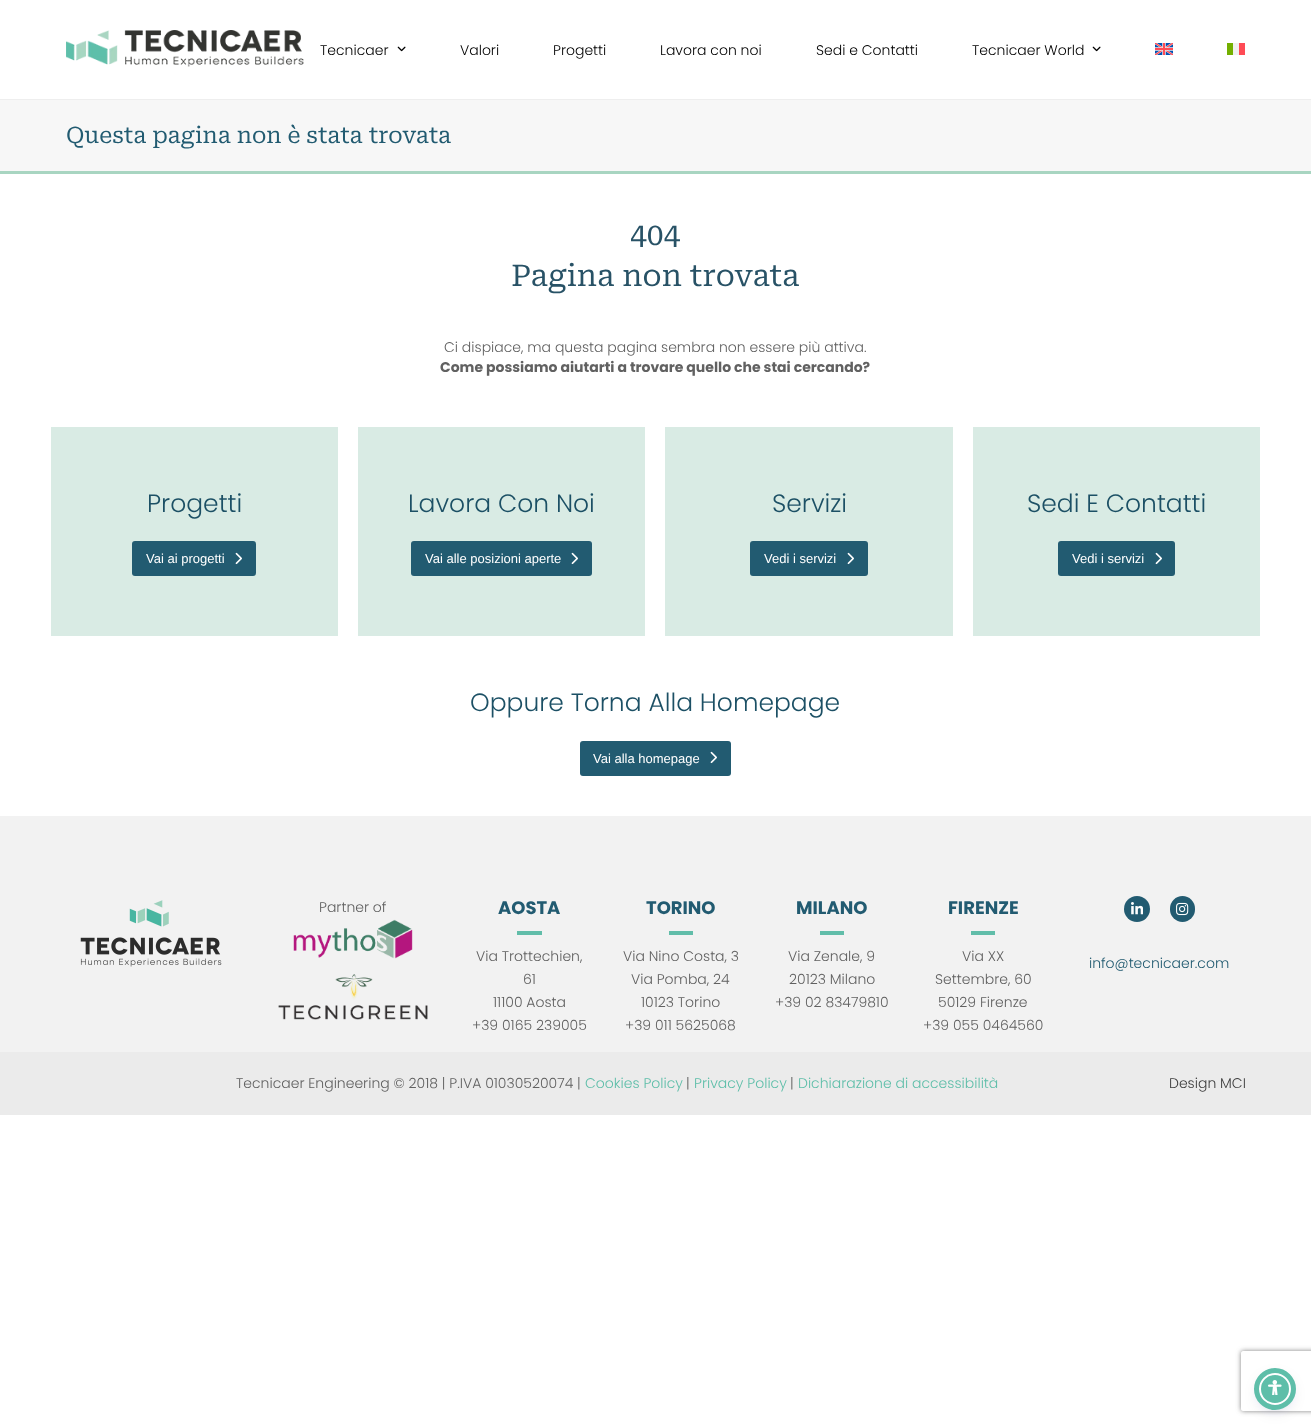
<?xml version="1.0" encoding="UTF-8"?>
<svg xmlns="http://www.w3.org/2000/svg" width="1311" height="1425">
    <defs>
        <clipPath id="clip1"><path d="M 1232 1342 H 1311 V 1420 H 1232 Z M 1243 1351 H 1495 C 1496 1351 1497 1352 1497 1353 V 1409 C 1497 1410 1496 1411 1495 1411 H 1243 C 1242 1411 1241 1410 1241 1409 V 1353 C 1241 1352 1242 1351 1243 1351 Z" clip-rule="evenodd"/></clipPath>
        <filter id="blur1" x="-50%" y="-200%" width="200%" height="500%"><feGaussianBlur stdDeviation="2.5"/></filter>
        <filter id="blur2" x="-50%" y="-200%" width="200%" height="500%"><feGaussianBlur stdDeviation="2"/></filter>
        <filter id="blur3" x="-50%" y="-200%" width="200%" height="500%"><feGaussianBlur stdDeviation="7.5"/></filter>
    </defs>
    <rect width="100%" height="100%" fill="#FFFFFF"/>
    <image x="66" y="30" width="238" height="37" href="img_01.png"/>
    <text x="320" y="55" font-family="Poppins" font-size="14" font-weight="300" fill="#000000">Tecnicaer</text>
    <image x="397" y="46" width="9" height="6" href="img_02.png"/>
    <text x="460" y="55" font-family="Poppins" font-size="14" font-weight="300" fill="#000000">Valori</text>
    <text x="553" y="55" font-family="Poppins" font-size="14" font-weight="300" fill="#000000">Progetti</text>
    <text x="660" y="55" font-family="Poppins" font-size="14" font-weight="300" fill="#000000">Lavora con noi</text>
    <text x="816" y="55" font-family="Poppins" font-size="14" font-weight="300" fill="#000000">Sedi e Contatti</text>
    <text x="972" y="55" font-family="Poppins" font-size="14" font-weight="300" fill="#000000">Tecnicaer World</text>
    <image x="1092" y="46" width="9" height="6" href="img_02.png"/>
    <image x="1155" y="43" width="18" height="12" href="img_03.png"/>
    <rect x="1227" y="43" width="6" height="12" fill="#73AF00"/>
    <rect x="1233" y="43" width="6" height="12" fill="#F0F0F0"/>
    <rect x="1239" y="43" width="6" height="12" fill="#FF4B55"/>
    <rect x="0" y="100" width="1311" height="71" fill="#F7F7F7"/>
    <rect x="0" y="99" width="1311" height="1" fill="#EEEEEE"/>
    <rect x="0" y="171" width="1311" height="3" fill="#A8D5C1"/>
    <text x="66" y="143" font-family="Roboto Serif" font-size="22.6" fill="#225B71">Questa pagina non è stata trovata</text>
    <text x="630" y="245" font-family="Roboto Serif" font-size="30" fill="#285266">404</text>
    <text x="511" y="286" font-family="Roboto Serif" font-size="30" fill="#285266">Pagina non trovata</text>
    <text x="444" y="352" font-family="Poppins" font-size="14" font-weight="300" fill="#616161">Ci dispiace, ma questa pagina sembra non essere più attiva.</text>
    <text x="440" y="372" font-family="Poppins" font-size="14" font-weight="700" fill="#616161">Come possiamo aiutarti a trovare quello che stai cercando?</text>
    <rect x="51" y="427" width="287" height="209" fill="#D9EBE4"/>
    <text x="147" y="512" font-family="Poppins" font-size="25" font-weight="300" fill="#1C5065">Progetti</text>
    <rect x="132" y="541" width="124" height="35" rx="3" fill="#225B71"/>
    <text x="146" y="563" font-family="Liberation Sans" font-size="13" fill="#FFFFFF">Vai ai progetti</text>
    <image x="235" y="552" width="7" height="13" href="img_04.png"/>
    <rect x="358" y="427" width="287" height="209" fill="#D9EBE4"/>
    <text x="408" y="512" font-family="Poppins" font-size="25" font-weight="300" fill="#1C5065">Lavora Con Noi</text>
    <rect x="411" y="541" width="181" height="35" rx="3" fill="#225B71"/>
    <text x="425" y="563" font-family="Liberation Sans" font-size="13" fill="#FFFFFF">Vai alle posizioni aperte</text>
    <image x="571" y="552" width="7" height="13" href="img_04.png"/>
    <rect x="665" y="427" width="288" height="209" fill="#D9EBE4"/>
    <text x="772" y="512" font-family="Poppins" font-size="25" font-weight="300" fill="#1C5065">Servizi</text>
    <rect x="750" y="541" width="118" height="35" rx="3" fill="#225B71"/>
    <text x="764" y="563" font-family="Liberation Sans" font-size="13" fill="#FFFFFF">Vedi i servizi</text>
    <image x="847" y="552" width="7" height="13" href="img_04.png"/>
    <rect x="973" y="427" width="287" height="209" fill="#D9EBE4"/>
    <text x="1027" y="512" font-family="Poppins" font-size="25" font-weight="300" fill="#1C5065">Sedi E Contatti</text>
    <rect x="1058" y="541" width="117" height="35" rx="3" fill="#225B71"/>
    <text x="1072" y="563" font-family="Liberation Sans" font-size="13" fill="#FFFFFF">Vedi i servizi</text>
    <image x="1155" y="552" width="7" height="13" href="img_04.png"/>
    <text x="470" y="711" font-family="Poppins" font-size="25" font-weight="300" fill="#1C5065">Oppure Torna Alla Homepage</text>
    <rect x="580" y="741" width="151" height="35" rx="3" fill="#225B71"/>
    <text x="593" y="763" font-family="Liberation Sans" font-size="13" fill="#FFFFFF">Vai alla homepage</text>
    <image x="710" y="751" width="7" height="13" href="img_04.png"/>
    <rect x="0" y="816" width="1311" height="236" fill="#F2F2F2"/>
    <image x="80" y="900" width="142" height="67" href="img_05.png"/>
    <text x="319" y="912" font-family="Poppins" font-size="14" font-weight="300" fill="#616161">Partner of</text>
    <image x="293" y="919" width="120" height="40" href="img_06.png"/>
    <image x="278" y="974" width="150" height="46" href="img_07.png"/>
    <text x="498" y="914" font-family="Poppins" font-size="18" font-weight="700" fill="#225B71">AOSTA</text>
    <rect x="517" y="931" width="25" height="4" fill="#61BDA9"/>
    <text x="476" y="961" font-family="Poppins" font-size="14" font-weight="300" fill="#616161">Via Trottechien,</text>
    <text x="523" y="984" font-family="Poppins" font-size="14" font-weight="300" fill="#616161">61</text>
    <text x="493" y="1007" font-family="Poppins" font-size="14" font-weight="300" fill="#616161">11100 Aosta</text>
    <text x="472" y="1030" font-family="Poppins" font-size="14" font-weight="300" fill="#616161">+39 0165 239005</text>
    <text x="646" y="914" font-family="Poppins" font-size="18" font-weight="700" fill="#225B71">TORINO</text>
    <rect x="669" y="931" width="24" height="4" fill="#61BDA9"/>
    <text x="623" y="961" font-family="Poppins" font-size="14" font-weight="300" fill="#616161">Via Nino Costa, 3</text>
    <text x="631" y="984" font-family="Poppins" font-size="14" font-weight="300" fill="#616161">Via Pomba, 24</text>
    <text x="641" y="1007" font-family="Poppins" font-size="14" font-weight="300" fill="#616161">10123 Torino</text>
    <text x="625" y="1030" font-family="Poppins" font-size="14" font-weight="300" fill="#616161">+39 011 5625068</text>
    <text x="796" y="914" font-family="Poppins" font-size="18" font-weight="700" fill="#225B71">MILANO</text>
    <rect x="820" y="931" width="24" height="4" fill="#61BDA9"/>
    <text x="788" y="961" font-family="Poppins" font-size="14" font-weight="300" fill="#616161">Via Zenale, 9</text>
    <text x="789" y="984" font-family="Poppins" font-size="14" font-weight="300" fill="#616161">20123 Milano</text>
    <text x="775" y="1007" font-family="Poppins" font-size="14" font-weight="300" fill="#616161">+39 02 83479810</text>
    <text x="948" y="914" font-family="Poppins" font-size="18" font-weight="700" fill="#225B71">FIRENZE</text>
    <rect x="971" y="931" width="24" height="4" fill="#61BDA9"/>
    <text x="962" y="961" font-family="Poppins" font-size="14" font-weight="300" fill="#616161">Via XX</text>
    <text x="935" y="984" font-family="Poppins" font-size="14" font-weight="300" fill="#616161">Settembre, 60</text>
    <text x="938" y="1007" font-family="Poppins" font-size="14" font-weight="300" fill="#616161">50129 Firenze</text>
    <text x="923" y="1030" font-family="Poppins" font-size="14" font-weight="300" fill="#616161">+39 055 0464560</text>
    <circle cx="1137" cy="909" r="13" fill="#225B71"/>
    <image x="1131" y="902" width="12" height="13" href="img_08.png"/>
    <rect x="1170" y="896" width="25" height="26" rx="12.5" fill="#225B71"/>
    <image x="1176" y="902" width="13" height="14" href="img_09.png"/>
    <text x="1089" y="968" font-family="Poppins" font-size="14" font-weight="300" fill="#225B71">info@tecnicaer.com</text>
    <rect x="0" y="1052" width="1311" height="63" fill="#EBEBEB"/>
    <text x="236" y="1088" font-family="Poppins" font-size="14" font-weight="300" fill="#616161">Tecnicaer Engineering © 2018 | P.IVA 01030520074 |</text>
    <text x="585" y="1088" font-family="Poppins" font-size="14" font-weight="300" fill="#5EBEA9">Cookies Policy</text>
    <text x="686" y="1088" font-family="Poppins" font-size="14" font-weight="300" fill="#616161">|</text>
    <text x="694" y="1088" font-family="Poppins" font-size="14" font-weight="300" fill="#5EBEA9">Privacy Policy</text>
    <text x="790" y="1088" font-family="Poppins" font-size="14" font-weight="300" fill="#616161">|</text>
    <text x="798" y="1088" font-family="Poppins" font-size="14" font-weight="300" fill="#5EBEA9">Dichiarazione di accessibilità</text>
    <text x="1169" y="1088" font-family="Poppins" font-size="14" font-weight="300" fill="#3D3D3D">Design MCI</text>
    <g clip-path="url(#clip1)">
        <rect x="1241" y="1351" width="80" height="60" rx="2" fill="#808080" filter="url(#blur1)"/>
    </g>
    <rect x="1259" y="1375" width="32" height="32" rx="16" fill="#5D6494" fill-opacity="0.2" filter="url(#blur2)"/>
    <rect x="1259" y="1378" width="32" height="32" rx="16" fill="#252C61" fill-opacity="0.15" filter="url(#blur3)"/>
    <circle cx="1275" cy="1389" r="15" fill="#5EBEA9" stroke="#FFFFFF" stroke-width="2"/>
    <circle cx="1275" cy="1389" r="18.5" fill="none" stroke="#5EBEA9" stroke-width="5"/>
    <image x="1268" y="1380" width="14" height="15" href="img_10.png"/>
</svg>
